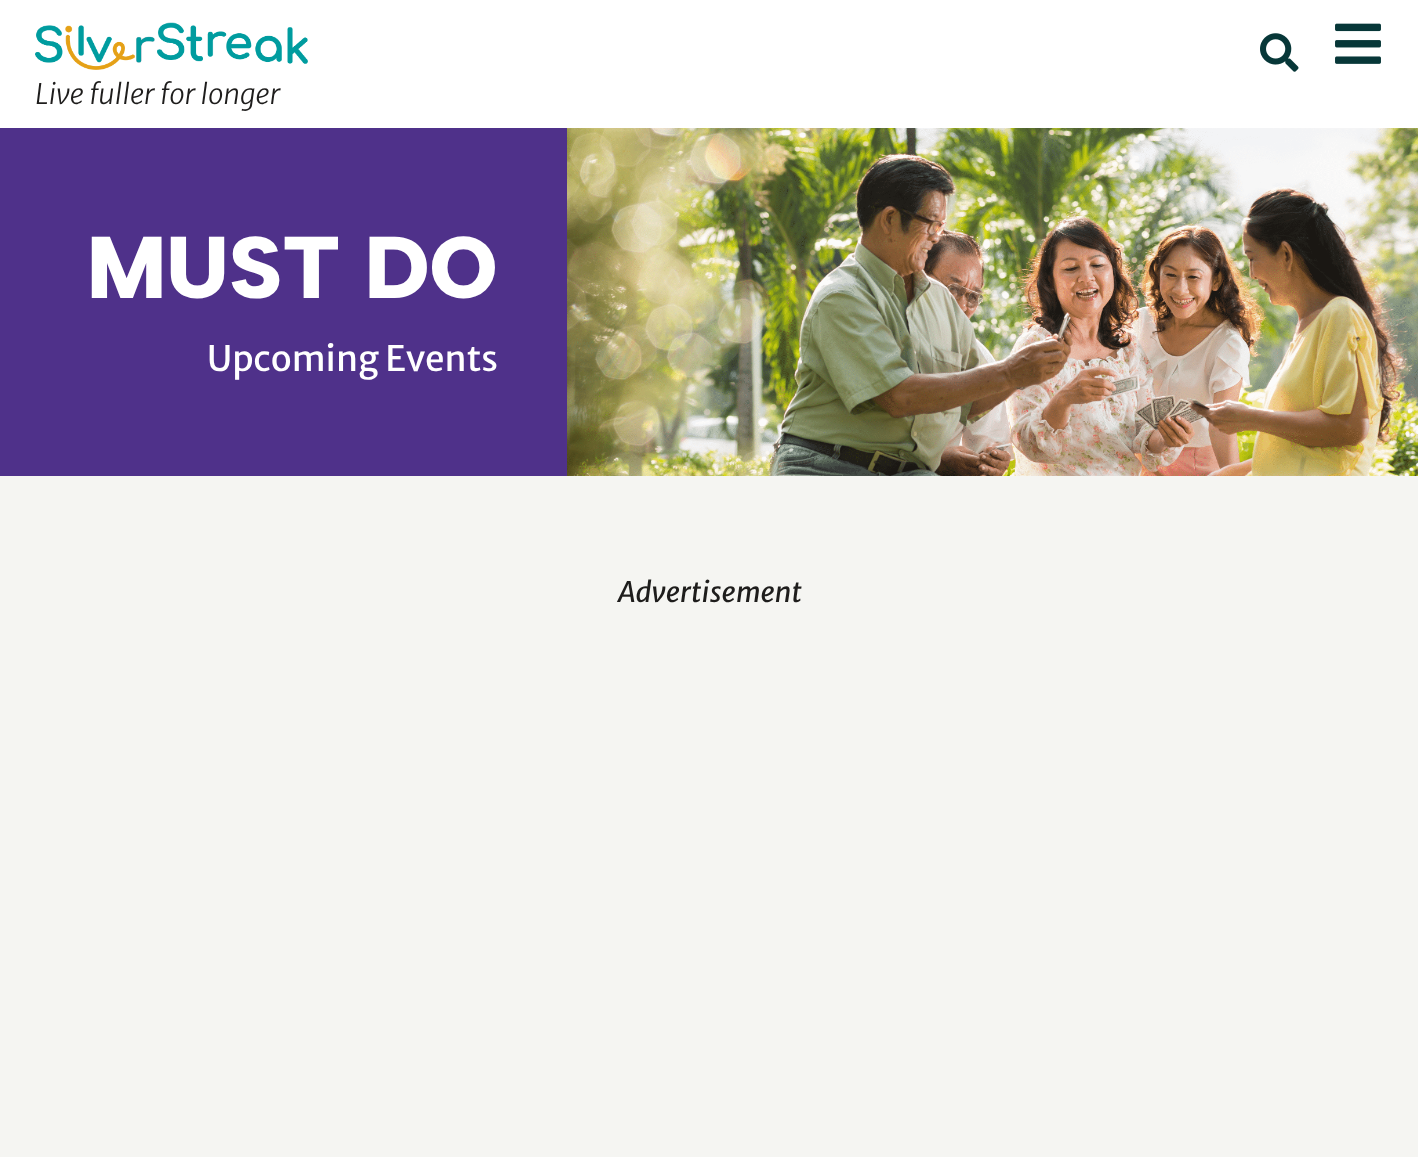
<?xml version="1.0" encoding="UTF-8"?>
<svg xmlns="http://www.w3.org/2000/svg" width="1418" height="1157">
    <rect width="100%" height="100%" fill="#F5F5F2"/>
    <rect x="0" y="0" width="1418" height="128" fill="#FFFFFF"/>
    <image x="1260" y="33" width="39" height="39" href="img_01.png"/>
    <image x="1335" y="23" width="46" height="41" href="img_02.png"/>
    <image x="35" y="22" width="273" height="48" href="img_03.png"/>
    <text x="35" y="104" font-family="Merriweather Sans" font-size="28" font-weight="300" font-style="italic" fill="#1E1D1C">Live fuller for longer</text>
    <rect x="0" y="128" width="1418" height="348" fill="#4F318A"/>
    <text x="87" y="298" font-family="Albert Sans" font-size="87.5" font-weight="900" fill="#FFFFFF">MUST DO</text>
    <text x="207" y="371" font-family="Merriweather Sans" font-size="35" fill="#FFFFFF">Upcoming Events</text>
    <image x="567" y="128" width="851" height="348" href="img_04.png"/>
    <text x="618" y="602" font-family="Merriweather Sans" font-size="28" font-style="italic" fill="#1E1D1C">Advertisement</text>
</svg>
